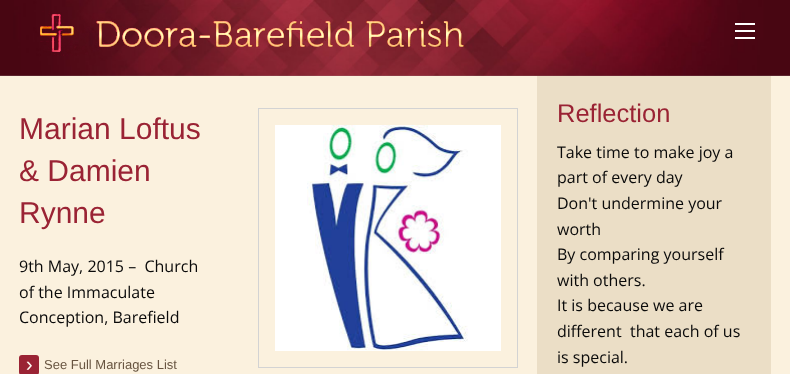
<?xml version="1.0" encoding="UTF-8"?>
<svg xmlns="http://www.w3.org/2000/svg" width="790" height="374">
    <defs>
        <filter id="blur1" x="-50%" y="-200%" width="200%" height="500%"><feGaussianBlur stdDeviation="25.5"/></filter>
    </defs>
    <rect width="100%" height="100%" fill="#FFFFFF"/>
    <rect x="1" y="77" width="788" height="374" fill="#000000" fill-opacity="0.75" filter="url(#blur1)"/>
    <image x="0" y="0" width="790" height="76" href="img_01.png"/>
    <image x="40" y="11" width="424" height="45" href="img_02.png"/>
    <rect x="735" y="37" width="20" height="2" fill="#FFFFFF"/>
    <rect x="735" y="30" width="20" height="2" fill="#FFFFFF"/>
    <rect x="735" y="23" width="20" height="2" fill="#FFFFFF"/>
    <rect x="0" y="76" width="537" height="298" fill="#FBF1DE"/>
    <text font-family="Liberation Sans" font-size="30" fill="#9A2334">
        <tspan x="19" y="139">Marian Loftus</tspan>
        <tspan x="19" y="181">&amp; Damien</tspan>
        <tspan x="19" y="223">Rynne</tspan>
    </text>
    <rect x="258.5" y="108.5" width="259" height="259" fill="none" stroke="#D3D3D3"/>
    <image x="275" y="125" width="226" height="226" href="img_03.png"/>
    <text font-family="Open Sans" font-size="16" fill="#0A0A0A" xml:space="preserve"><tspan x="19" y="272">9th May, 2015 –  Church</tspan><tspan x="19" y="298">of the Immaculate</tspan><tspan x="19" y="323">Conception, Barefield</tspan></text>
    <rect x="19" y="355" width="20" height="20" rx="3" fill="#9A2334"/>
    <text x="26" y="371" font-family="Liberation Sans" font-size="20" fill="#FCFBF3">›</text>
    <text x="44" y="369" font-family="Liberation Sans" font-size="13" fill="#685541">See Full Marriages List</text>
    <rect x="771" y="76" width="19" height="298" fill="#FBF1DE"/>
    <rect x="537" y="76" width="234" height="298" fill="#EBDEC6"/>
    <text x="557" y="122" font-family="Liberation Sans" font-size="25.5" fill="#9A2334">Reflection</text>
    <text font-family="Open Sans" font-size="16" fill="#0A0A0A" xml:space="preserve"><tspan x="557" y="158">Take time to make joy a</tspan><tspan x="557" y="183">part of every day</tspan><tspan x="557" y="209">Don't undermine your</tspan><tspan x="557" y="235">worth</tspan><tspan x="557" y="260">By comparing yourself</tspan><tspan x="557" y="286">with others.</tspan><tspan x="557" y="311">It is because we are</tspan><tspan x="557" y="337">different  that each of us</tspan><tspan x="557" y="363">is special.</tspan></text>
</svg>
